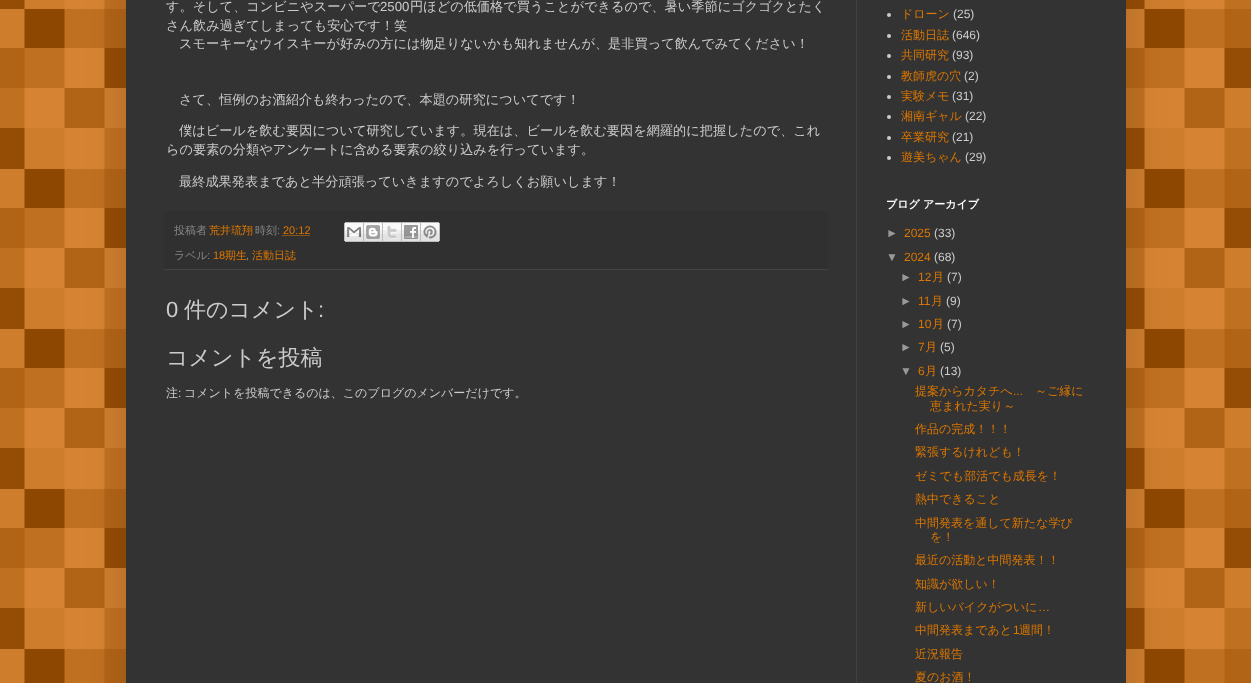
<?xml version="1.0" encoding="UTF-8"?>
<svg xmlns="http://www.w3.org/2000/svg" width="1251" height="683">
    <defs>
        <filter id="blur1" x="-50%" y="-200%" width="200%" height="500%"><feGaussianBlur stdDeviation="20"/></filter>
    </defs>
    <rect width="100%" height="100%" fill="#CC6600"/>
    <image x="0" y="0" width="1251" height="683" href="img_01.png"/>
    <rect x="126" y="-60" width="1000" height="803" fill="#000000" fill-opacity="0.15" filter="url(#blur1)"/>
    <rect x="126" y="0" width="1000" height="683" fill="#333333"/>
    <text x="166" y="11" font-family="WenQuanYi Zen Hei" font-size="13.2" font-weight="500" fill="#CCCCCC">す。そして、コンビニやスーパーで</text>
    <text x="380" y="11" font-family="Liberation Sans" font-size="13.2" fill="#CCCCCC">2500</text>
    <text x="410" y="11" font-family="WenQuanYi Zen Hei" font-size="13.2" font-weight="500" fill="#CCCCCC">円ほどの低価格で買うことができるので、暑い季節にゴクゴクとたく</text>
    <text x="166" y="30" font-family="WenQuanYi Zen Hei" font-size="13.2" font-weight="500" fill="#CCCCCC">さん飲み過ぎてしまっても安心です！笑</text>
    <text x="179" y="48" font-family="WenQuanYi Zen Hei" font-size="13.2" font-weight="500" fill="#CCCCCC">スモーキーなウイスキーが好みの方には物足りないかも知れませんが、是非買って飲んでみてください！</text>
    <text x="179" y="104" font-family="WenQuanYi Zen Hei" font-size="13.2" font-weight="500" fill="#CCCCCC">さて、恒例のお酒紹介も終わったので、本題の研究についてです！</text>
    <text x="179" y="135" font-family="WenQuanYi Zen Hei" font-size="13.2" font-weight="500" fill="#CCCCCC">僕はビールを飲む要因について研究しています。現在は、ビールを飲む要因を網羅的に把握したので、これ</text>
    <text x="166" y="154" font-family="WenQuanYi Zen Hei" font-size="13.2" font-weight="500" fill="#CCCCCC">らの要素の分類やアンケートに含める要素の絞り込みを行っています。</text>
    <text x="179" y="186" font-family="WenQuanYi Zen Hei" font-size="13.2" font-weight="500" fill="#CCCCCC">最終成果発表まであと半分頑張っていきますのでよろしくお願いします！</text>
    <rect x="164" y="211" width="664" height="58" fill="#303030"/>
    <rect x="164" y="269" width="664" height="1" fill="#444444"/>
    <text x="174" y="234" font-family="WenQuanYi Zen Hei" font-size="11" font-weight="500" fill="#888888">投稿者</text>
    <text x="209" y="234" font-family="WenQuanYi Zen Hei" font-size="11" font-weight="500" fill="#DD7700">荒井琉翔</text>
    <text x="255" y="234" font-family="WenQuanYi Zen Hei" font-size="11" font-weight="500" fill="#888888">時刻</text>
    <text x="277" y="234" font-family="Liberation Sans" font-size="11" fill="#888888">:</text>
    <text x="283" y="234" font-family="Liberation Sans" font-size="11" fill="#DD7700">20:12</text>
    <path d="M 282.5 235.5 H 309.5" fill="none" stroke="#DD7700" stroke-dasharray="1 1"/>
    <image x="344" y="222" width="20" height="20" href="img_02.png"/>
    <image x="364" y="222" width="19" height="20" href="img_03.png"/>
    <image x="383" y="222" width="19" height="20" href="img_04.png"/>
    <image x="402" y="222" width="19" height="20" href="img_05.png"/>
    <image x="421" y="222" width="19" height="20" href="img_06.png"/>
    <text x="174" y="259" font-family="WenQuanYi Zen Hei" font-size="11" font-weight="500" fill="#888888">ラベル</text>
    <text x="207" y="259" font-family="Liberation Sans" font-size="11" fill="#888888">:</text>
    <text x="213" y="259" font-family="Liberation Sans" font-size="11" fill="#DD7700">18</text>
    <text x="225" y="259" font-family="WenQuanYi Zen Hei" font-size="11" font-weight="500" fill="#DD7700">期生</text>
    <text x="246" y="259" font-family="Liberation Sans" font-size="11" fill="#888888">,</text>
    <text x="252" y="259" font-family="WenQuanYi Zen Hei" font-size="11" font-weight="500" fill="#DD7700">活動日誌</text>
    <text x="166" y="317" font-family="Liberation Sans" font-size="22" fill="#CCCCCC">0</text>
    <text x="184" y="317" font-family="WenQuanYi Zen Hei" font-size="22" font-weight="500" fill="#CCCCCC">件のコメント</text>
    <text x="318" y="317" font-family="Liberation Sans" font-size="22" fill="#CCCCCC">:</text>
    <text x="166" y="365" font-family="WenQuanYi Zen Hei" font-size="22" font-weight="500" fill="#CCCCCC">コメントを投稿</text>
    <text x="166" y="397" font-family="WenQuanYi Zen Hei" font-size="12" font-weight="500" fill="#CCCCCC">注</text>
    <text x="178" y="397" font-family="Liberation Sans" font-size="12" fill="#CCCCCC">:</text>
    <text x="184" y="397" font-family="WenQuanYi Zen Hei" font-size="12" font-weight="500" fill="#CCCCCC">コメントを投稿できるのは、このブログのメンバーだけです。</text>
    <circle cx="889" cy="15" r="2" fill="#CCCCCC"/>
    <text x="901" y="18" font-family="WenQuanYi Zen Hei" font-size="12" font-weight="500" fill="#DD7700">ドローン</text>
    <text x="953" y="18" font-family="Liberation Sans" font-size="12" fill="#CCCCCC">(25)</text>
    <circle cx="889" cy="36" r="2" fill="#CCCCCC"/>
    <text x="901" y="39" font-family="WenQuanYi Zen Hei" font-size="12" font-weight="500" fill="#DD7700">活動日誌</text>
    <text x="952" y="39" font-family="Liberation Sans" font-size="12" fill="#CCCCCC">(646)</text>
    <circle cx="889" cy="56" r="2" fill="#CCCCCC"/>
    <text x="901" y="59" font-family="WenQuanYi Zen Hei" font-size="12" font-weight="500" fill="#DD7700">共同研究</text>
    <text x="952" y="59" font-family="Liberation Sans" font-size="12" fill="#CCCCCC">(93)</text>
    <circle cx="889" cy="77" r="2" fill="#CCCCCC"/>
    <text x="901" y="80" font-family="WenQuanYi Zen Hei" font-size="12" font-weight="500" fill="#DD7700">教師虎の穴</text>
    <text x="964" y="80" font-family="Liberation Sans" font-size="12" fill="#CCCCCC">(2)</text>
    <circle cx="889" cy="97" r="2" fill="#CCCCCC"/>
    <text x="901" y="100" font-family="WenQuanYi Zen Hei" font-size="12" font-weight="500" fill="#DD7700">実験メモ</text>
    <text x="952" y="100" font-family="Liberation Sans" font-size="12" fill="#CCCCCC">(31)</text>
    <circle cx="889" cy="117" r="2" fill="#CCCCCC"/>
    <text x="901" y="120" font-family="WenQuanYi Zen Hei" font-size="12" font-weight="500" fill="#DD7700">湘南ギャル</text>
    <text x="965" y="120" font-family="Liberation Sans" font-size="12" fill="#CCCCCC">(22)</text>
    <circle cx="889" cy="138" r="2" fill="#CCCCCC"/>
    <text x="901" y="141" font-family="WenQuanYi Zen Hei" font-size="12" font-weight="500" fill="#DD7700">卒業研究</text>
    <text x="952" y="141" font-family="Liberation Sans" font-size="12" fill="#CCCCCC">(21)</text>
    <circle cx="889" cy="158" r="2" fill="#CCCCCC"/>
    <text x="901" y="161" font-family="WenQuanYi Zen Hei" font-size="12" font-weight="500" fill="#DD7700">遊美ちゃん</text>
    <text x="965" y="161" font-family="Liberation Sans" font-size="12" fill="#CCCCCC">(29)</text>
    <text x="886" y="208" font-family="WenQuanYi Zen Hei" font-size="11" font-weight="700" fill="#FFFFFF">ブログ アーカイブ</text>
    <text x="886" y="237" font-family="Liberation Sans" font-size="12" fill="#999999">►</text>
    <text x="904" y="237" font-family="Liberation Sans" font-size="12" fill="#DD7700">2025</text>
    <text x="934" y="237" font-family="Liberation Sans" font-size="12" fill="#CCCCCC">(33)</text>
    <text x="886" y="261" font-family="Liberation Sans" font-size="12" fill="#999999">▼</text>
    <text x="904" y="261" font-family="Liberation Sans" font-size="12" fill="#DD7700">2024</text>
    <text x="934" y="261" font-family="Liberation Sans" font-size="12" fill="#CCCCCC">(68)</text>
    <text x="900" y="281" font-family="Liberation Sans" font-size="12" fill="#999999">►</text>
    <text x="918" y="281" font-family="Liberation Sans" font-size="12" fill="#DD7700">12</text>
    <text x="932" y="281" font-family="WenQuanYi Zen Hei" font-size="12" font-weight="500" fill="#DD7700">月</text>
    <text x="947" y="281" font-family="Liberation Sans" font-size="12" fill="#CCCCCC">(7)</text>
    <text x="900" y="305" font-family="Liberation Sans" font-size="12" fill="#999999">►</text>
    <text x="918" y="305" font-family="Liberation Sans" font-size="12" fill="#DD7700">11</text>
    <text x="931" y="305" font-family="WenQuanYi Zen Hei" font-size="12" font-weight="500" fill="#DD7700">月</text>
    <text x="946" y="305" font-family="Liberation Sans" font-size="12" fill="#CCCCCC">(9)</text>
    <text x="900" y="328" font-family="Liberation Sans" font-size="12" fill="#999999">►</text>
    <text x="918" y="328" font-family="Liberation Sans" font-size="12" fill="#DD7700">10</text>
    <text x="932" y="328" font-family="WenQuanYi Zen Hei" font-size="12" font-weight="500" fill="#DD7700">月</text>
    <text x="947" y="328" font-family="Liberation Sans" font-size="12" fill="#CCCCCC">(7)</text>
    <text x="900" y="351" font-family="Liberation Sans" font-size="12" fill="#999999">►</text>
    <text x="918" y="351" font-family="Liberation Sans" font-size="12" fill="#DD7700">7</text>
    <text x="925" y="351" font-family="WenQuanYi Zen Hei" font-size="12" font-weight="500" fill="#DD7700">月</text>
    <text x="940" y="351" font-family="Liberation Sans" font-size="12" fill="#CCCCCC">(5)</text>
    <text x="900" y="375" font-family="Liberation Sans" font-size="12" fill="#999999">▼</text>
    <text x="918" y="375" font-family="Liberation Sans" font-size="12" fill="#DD7700">6</text>
    <text x="925" y="375" font-family="WenQuanYi Zen Hei" font-size="12" font-weight="500" fill="#DD7700">月</text>
    <text x="940" y="375" font-family="Liberation Sans" font-size="12" fill="#CCCCCC">(13)</text>
    <text x="915" y="395" font-family="WenQuanYi Zen Hei" font-size="12" font-weight="500" fill="#DD7700">提案からカタチへ</text>
    <text x="1013" y="395" font-family="Liberation Sans" font-size="12" fill="#DD7700">...</text>
    <text x="1035" y="395" font-family="WenQuanYi Zen Hei" font-size="12" font-weight="500" fill="#DD7700">～ご縁に</text>
    <text x="930" y="410" font-family="WenQuanYi Zen Hei" font-size="12" font-weight="500" fill="#DD7700">恵まれた実り～</text>
    <text font-family="WenQuanYi Zen Hei" font-size="12" font-weight="500" fill="#DD7700">
        <tspan x="915" y="433">作品の完成！！！</tspan>
        <tspan x="915" y="456">緊張するけれども！</tspan>
    </text>
    <text font-family="WenQuanYi Zen Hei" font-size="12" font-weight="500" fill="#DD7700">
        <tspan x="915" y="480">ゼミでも部活でも成長を！</tspan>
        <tspan x="915" y="503">熱中できること</tspan>
    </text>
    <text x="915" y="527" font-family="WenQuanYi Zen Hei" font-size="12" font-weight="500" fill="#DD7700">中間発表を通して新たな学び</text>
    <text x="930" y="541" font-family="WenQuanYi Zen Hei" font-size="12" font-weight="500" fill="#DD7700">を！</text>
    <text x="915" y="564" font-family="WenQuanYi Zen Hei" font-size="12" font-weight="500" fill="#DD7700">最近の活動と中間発表！！</text>
    <text font-family="WenQuanYi Zen Hei" font-size="12" font-weight="500" fill="#DD7700">
        <tspan x="915" y="588">知識が欲しい！</tspan>
        <tspan x="915" y="611">新しいバイクがついに</tspan>
    </text>
    <text x="1038" y="611" font-family="Liberation Sans" font-size="12" fill="#DD7700">…</text>
    <text x="915" y="634" font-family="WenQuanYi Zen Hei" font-size="12" font-weight="500" fill="#DD7700">中間発表まであと</text>
    <text x="1013" y="634" font-family="Liberation Sans" font-size="12" fill="#DD7700">1</text>
    <text x="1019" y="634" font-family="WenQuanYi Zen Hei" font-size="12" font-weight="500" fill="#DD7700">週間！</text>
    <text font-family="WenQuanYi Zen Hei" font-size="12" font-weight="500" fill="#DD7700">
        <tspan x="915" y="658">近況報告</tspan>
        <tspan x="915" y="681">夏のお酒！</tspan>
    </text>
    <rect x="856" y="0" width="1" height="683" fill="#404040"/>
</svg>
